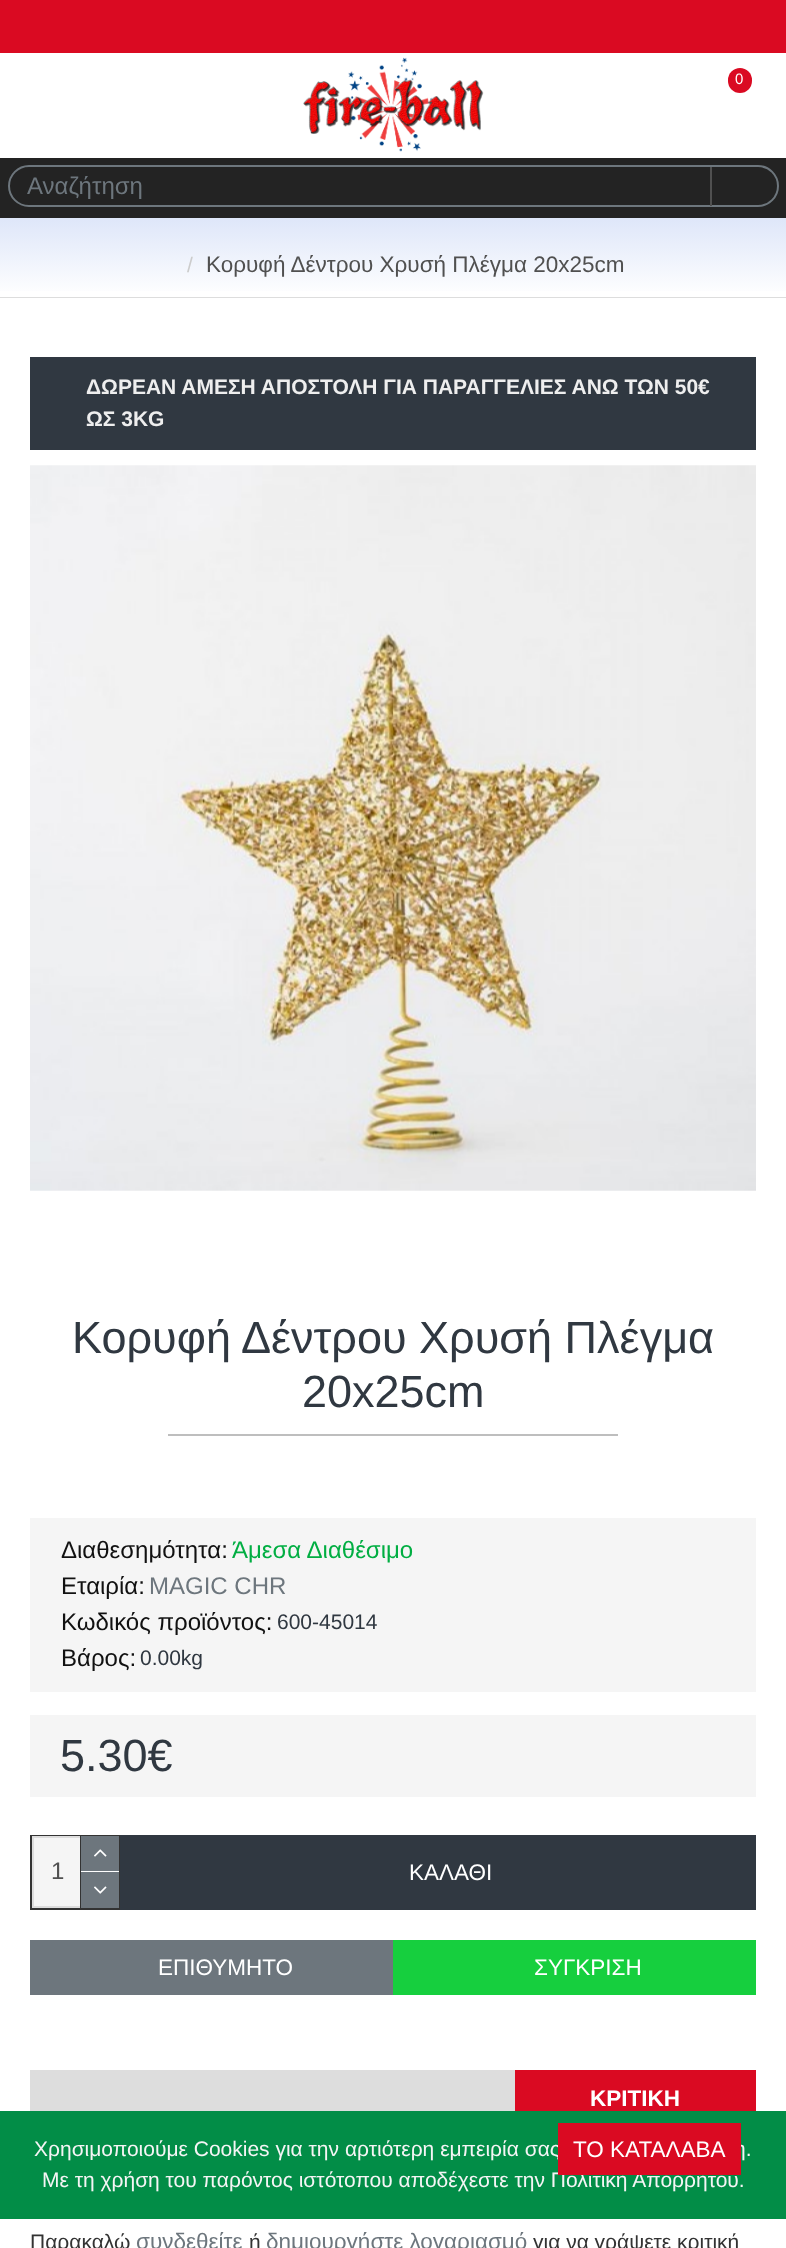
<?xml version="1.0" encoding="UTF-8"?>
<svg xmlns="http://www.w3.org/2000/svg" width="786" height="2248">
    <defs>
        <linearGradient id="g1" gradientUnits="userSpaceOnUse" x1="393" y1="297" x2="393" y2="218"><stop offset="0" stop-color="#FFFFFF"/><stop offset="1" stop-color="#DEE6F9"/></linearGradient>
    </defs>
    <rect width="100%" height="100%" fill="#FFFFFF"/>
    <rect x="0" y="0" width="786" height="53" fill="#DA0A22"/>
    <image x="303" y="57" width="181" height="95" href="img_01.png"/>
    <rect x="728" y="68" width="24" height="25" rx="12" fill="#DA0A22"/>
    <text x="735" y="84" font-family="Liberation Sans" font-size="15" fill="#FFFFFF">0</text>
    <rect x="0" y="158" width="786" height="60" fill="#232323"/>
    <rect x="9" y="166" width="769" height="40" rx="20" fill="none" stroke="#6D767D" stroke-width="2"/>
    <text x="27" y="194" font-family="Liberation Sans" font-size="24" fill="#6D767D">Αναζήτηση</text>
    <rect x="710" y="167" width="2" height="39" fill="#505050"/>
    <rect x="0" y="218" width="786" height="73" fill="url(#g1)"/>
    <text x="187" y="272" font-family="Liberation Sans" font-size="21" fill="#CCCCCC">/</text>
    <text x="206" y="272" font-family="Liberation Sans" font-size="22.5" fill="#505050">Κορυφή Δέντρου Χρυσή Πλέγμα 20x25cm</text>
    <rect x="0" y="297" width="786" height="1" fill="#DDDDDD"/>
    <rect x="30" y="357" width="726" height="93" fill="#303841"/>
    <text font-family="Liberation Sans" font-size="21" font-weight="700" fill="#EEEEEE">
        <tspan x="86" y="394">ΔΩΡΕΑΝ ΑΜΕΣΗ ΑΠΟΣΤΟΛΗ ΓΙΑ ΠΑΡΑΓΓΕΛΙΕΣ ΑΝΩ ΤΩΝ 50€</tspan>
        <tspan x="86" y="426">ΩΣ 3KG</tspan>
    </text>
    <image x="30" y="465" width="726" height="726" href="img_02.png"/>
    <text x="72" y="1353" font-family="Liberation Sans" font-size="45" fill="#303841">Κορυφή Δέντρου Χρυσή Πλέγμα</text>
    <text x="302" y="1407" font-family="Liberation Sans" font-size="45" fill="#303841">20x25cm</text>
    <rect x="168" y="1434" width="450" height="2" fill="#BEBEBE"/>
    <rect x="30" y="1518" width="726" height="174" fill="#F5F5F5"/>
    <text x="61" y="1558" font-family="Liberation Sans" font-size="24" fill="#111111">Διαθεσημότητα:</text>
    <text x="232" y="1558" font-family="Liberation Sans" font-size="24" fill="#01AE42">Άμεσα Διαθέσιμο</text>
    <text x="61" y="1594" font-family="Liberation Sans" font-size="24" fill="#111111">Εταιρία:</text>
    <text x="149" y="1594" font-family="Liberation Sans" font-size="24" fill="#6D767D">MAGIC CHR</text>
    <text x="61" y="1630" font-family="Liberation Sans" font-size="24" fill="#111111">Κωδικός προϊόντος:</text>
    <text x="277" y="1629" font-family="Liberation Sans" font-size="21" fill="#303841">600-45014</text>
    <text x="61" y="1666" font-family="Liberation Sans" font-size="24" fill="#111111">Βάρος:</text>
    <text x="140" y="1665" font-family="Liberation Sans" font-size="21" fill="#303841">0.00kg</text>
    <rect x="30" y="1715" width="726" height="82" fill="#F5F5F5"/>
    <text x="60" y="1771" font-family="Liberation Sans" font-size="45" fill="#303841">5.30€</text>
    <rect x="31" y="1836" width="88" height="73" fill="none" stroke="#333333" stroke-width="2"/>
    <rect x="34" y="1838" width="46" height="68" fill="#F5F5F5"/>
    <rect x="33" y="1837" width="85" height="70" fill="none" stroke="#DDDDDD" stroke-width="2"/>
    <text x="51" y="1879" font-family="Liberation Sans" font-size="24" fill="#505050">1</text>
    <rect x="80" y="1836" width="1" height="72" fill="#333333"/>
    <rect x="81" y="1836" width="38" height="35" fill="#6D767D"/>
    <rect x="117" y="1871" width="2" height="1" fill="#FFFFFF"/>
    <image x="94" y="1849" width="13" height="8" href="img_03.png"/>
    <rect x="81" y="1872" width="38" height="36" fill="#6D767D"/>
    <image x="94" y="1886" width="13" height="8" href="img_04.png"/>
    <rect x="120" y="1835" width="636" height="75" fill="#303841"/>
    <text x="409" y="1880" font-family="Liberation Sans" font-size="22.5" fill="#FFFFFF">ΚΑΛΑΘΙ</text>
    <rect x="30" y="1940" width="363" height="55" fill="#6D767D"/>
    <text x="158" y="1975" font-family="Liberation Sans" font-size="22.5" fill="#FFFFFF">ΕΠΙΘΥΜΗΤΟ</text>
    <rect x="393" y="1940" width="363" height="55" fill="#16CF3E"/>
    <text x="534" y="1975" font-family="Liberation Sans" font-size="22.5" fill="#FFFFFF">ΣΥΓΚΡΙΣΗ</text>
    <rect x="30" y="2070" width="485" height="41" fill="#DDDDDD"/>
    <rect x="515" y="2070" width="241" height="41" fill="#DA0A22"/>
    <text x="590" y="2106" font-family="Liberation Sans" font-size="22.5" font-weight="700" fill="#FFFFFF">ΚΡΙΤΙΚΗ</text>
    <text x="30" y="2249" font-family="Liberation Sans" font-size="21" fill="#333333">Παρακαλώ</text>
    <text x="136" y="2249" font-family="Liberation Sans" font-size="22.5" fill="#6D767D">συνδεθείτε</text>
    <text x="249" y="2249" font-family="Liberation Sans" font-size="21" fill="#333333">ή</text>
    <text x="266" y="2249" font-family="Liberation Sans" font-size="22.5" fill="#6D767D">δημιουργήστε λογαριασμό</text>
    <text x="533" y="2249" font-family="Liberation Sans" font-size="21" fill="#333333">για να γράψετε κριτική</text>
    <rect x="0" y="2111" width="786" height="108" fill="#028D47"/>
    <text x="34" y="2156" font-family="Liberation Sans" font-size="21" fill="#F5F5F5">Χρησιμοποιούμε Cookies για την αρτιότερη εμπειρία σας</text>
    <text x="734" y="2156" font-family="Liberation Sans" font-size="21" fill="#F5F5F5">η.</text>
    <text x="42" y="2187" font-family="Liberation Sans" font-size="21" fill="#F5F5F5">Με τη χρήση του παρόντος ιστότοπου αποδέχεστε την Πολιτική Απορρήτου.</text>
    <rect x="558" y="2123" width="183" height="52" fill="#DA0A22"/>
    <text x="573" y="2157" font-family="Liberation Sans" font-size="22.5" fill="#FFFFFF">ΤΟ ΚΑΤΑΛΑΒΑ</text>
</svg>
